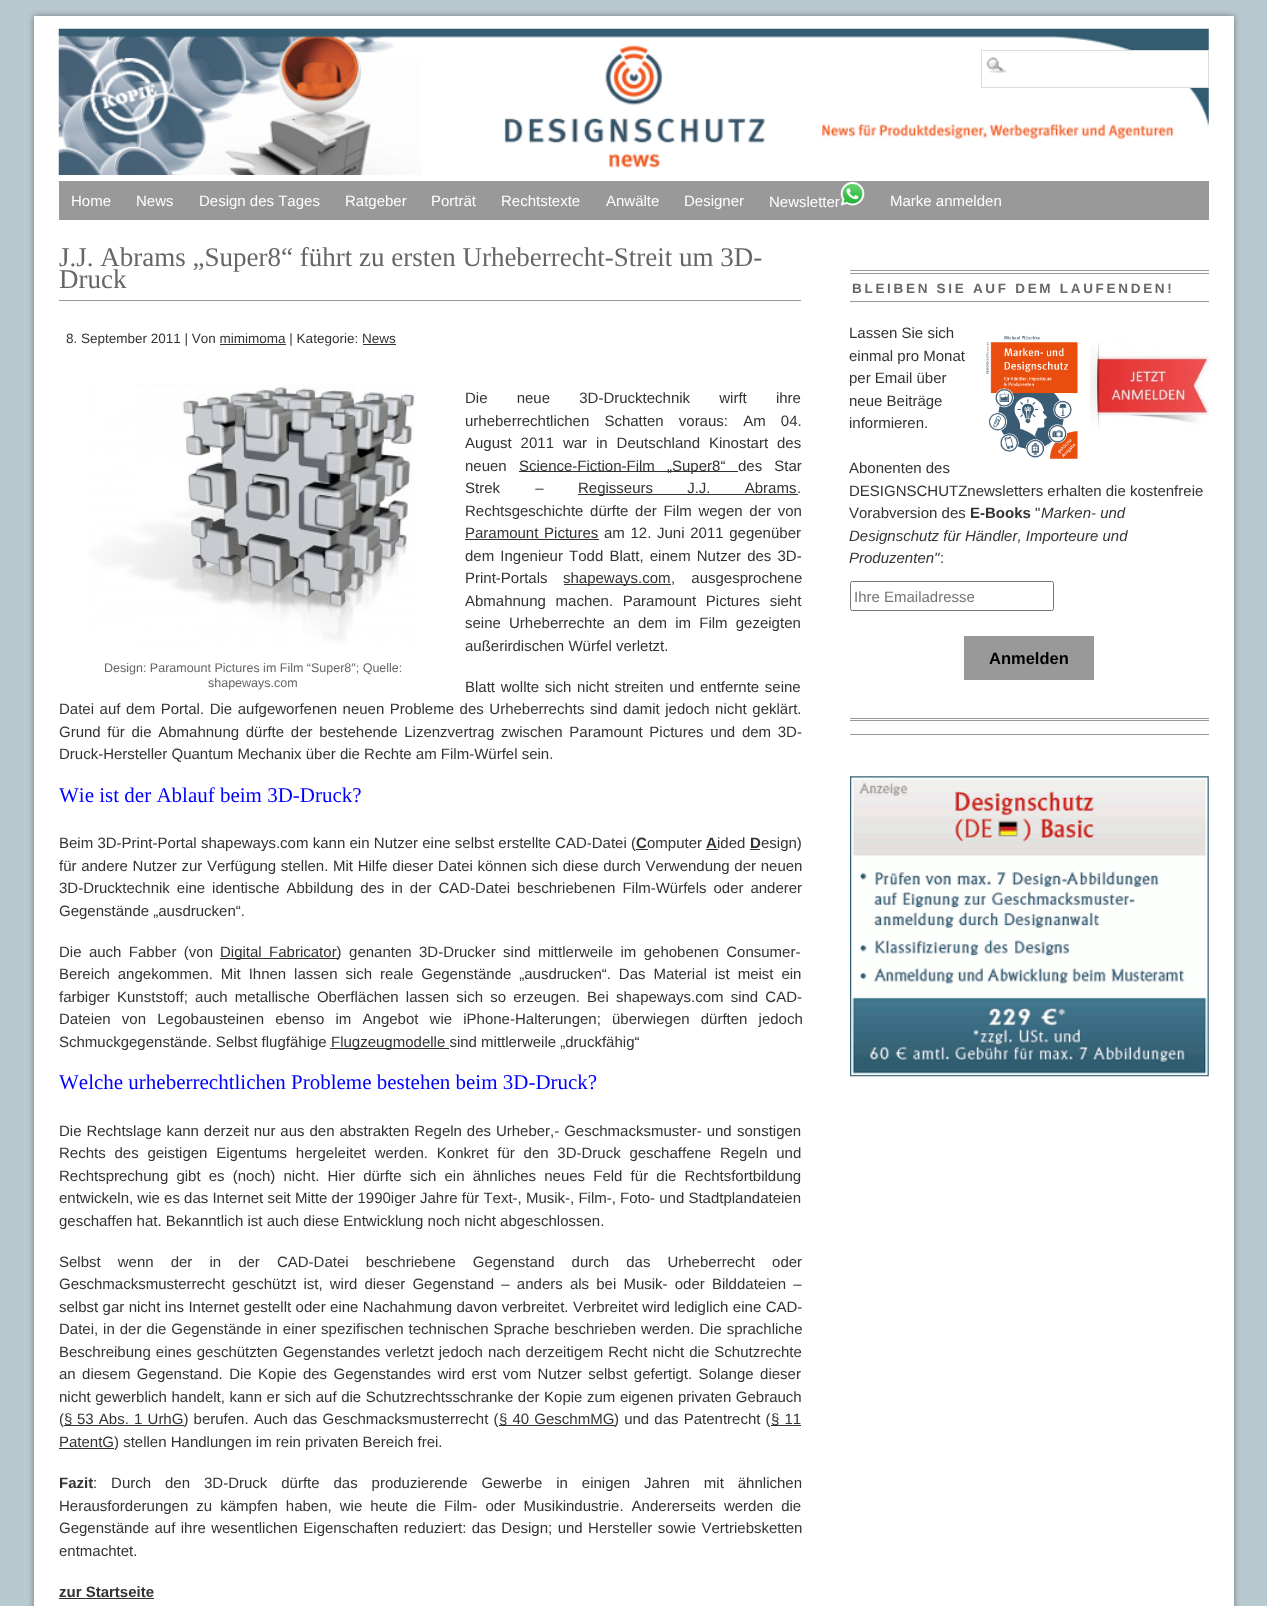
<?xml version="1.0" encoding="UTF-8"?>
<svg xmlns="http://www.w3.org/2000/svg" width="1267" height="1606">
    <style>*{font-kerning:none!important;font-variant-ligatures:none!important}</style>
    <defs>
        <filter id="blur1" x="-50%" y="-200%" width="200%" height="500%"><feGaussianBlur stdDeviation="3"/></filter>
    </defs>
    <rect width="100%" height="100%" fill="#B9C9D0"/>
    <rect x="34" y="16" width="1200" height="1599" fill="#000000" fill-opacity="0.4" filter="url(#blur1)"/>
    <rect x="34" y="16" width="1200" height="1590" fill="#FFFFFF"/>
    <image x="58" y="28" width="1151" height="147" href="img_01.png"/>
    <rect x="1129" y="51" width="79" height="36" fill="#FFFFFF"/>
    <image x="986" y="57" width="21" height="16" href="img_02.png"/>
    <rect x="981.5" y="50.5" width="227" height="37" fill="none" stroke="#DDDDDD"/>
    <rect x="59" y="181" width="1150" height="39" fill="#999999"/>
    <text x="71" y="206" font-family="Liberation Sans" font-size="15" fill="#FFFFFF">Home</text>
    <text x="136" y="206" font-family="Liberation Sans" font-size="15" fill="#FFFFFF">News</text>
    <text x="199" y="206" font-family="Liberation Sans" font-size="15" fill="#FFFFFF">Design des Tages</text>
    <text x="345" y="206" font-family="Liberation Sans" font-size="15" fill="#FFFFFF">Ratgeber</text>
    <text x="431" y="206" font-family="Liberation Sans" font-size="15" fill="#FFFFFF">Porträt</text>
    <text x="501" y="206" font-family="Liberation Sans" font-size="15" fill="#FFFFFF">Rechtstexte</text>
    <text x="606" y="206" font-family="Liberation Sans" font-size="15" fill="#FFFFFF">Anwälte</text>
    <text x="684" y="206" font-family="Liberation Sans" font-size="15" fill="#FFFFFF">Designer</text>
    <text x="769" y="207" font-family="Liberation Sans" font-size="15" fill="#FFFFFF">Newsletter</text>
    <image x="840" y="182" width="25" height="24" href="img_03.png"/>
    <text x="890" y="206" font-family="Liberation Sans" font-size="15" fill="#FFFFFF">Marke anmelden</text>
    <rect x="59" y="300" width="742" height="1" fill="#999999"/>
    <text font-family="Liberation Serif" font-size="27" fill="#666666">
        <tspan x="59" y="266">J.J. Abrams „Super8“ führt zu ersten Urheberrecht-Streit um 3D-</tspan>
        <tspan x="59" y="288">Druck</tspan>
    </text>
    <text x="66" y="343" font-family="Liberation Sans" font-size="13.5" fill="#333333">8. September 2011 | Von mimimoma | Kategorie: News</text>
    <rect x="220" y="344" width="66" height="1" fill="#333333"/>
    <rect x="363" y="344" width="33" height="1" fill="#333333"/>
    <text font-family="Liberation Sans" font-size="15" fill="#333333">
        <tspan x="465" y="403" word-spacing="25">Die neue 3D-Drucktechnik wirft ihre</tspan>
        <tspan x="465" y="426" word-spacing="11">urheberrechtlichen Schatten voraus: Am 04.</tspan>
        <tspan x="465" y="448" word-spacing="4.75">August 2011 war in Deutschland Kinostart des</tspan>
        <tspan x="465" y="471">neuen</tspan>
    </text>
    <rect x="519" y="471" width="219" height="1" fill="#333333"/>
    <text x="519" y="471" word-spacing="8" font-family="Liberation Sans" font-size="15" fill="#333333">Science-Fiction-Film „Super8“</text>
    <text x="738" y="471" word-spacing="8" font-family="Liberation Sans" font-size="15" fill="#333333">des Star</text>
    <text x="465" y="493" word-spacing="31" font-family="Liberation Sans" font-size="15" fill="#333333">Strek –</text>
    <rect x="578" y="494" width="220" height="1" fill="#333333"/>
    <text x="578" y="493" word-spacing="30" font-family="Liberation Sans" font-size="15" fill="#333333">Regisseurs J.J. Abrams</text>
    <text x="797" y="493" font-family="Liberation Sans" font-size="15" fill="#333333">.</text>
    <text font-family="Liberation Sans" font-size="15" fill="#333333">
        <tspan x="465" y="516" word-spacing="2.5">Rechtsgeschichte dürfte der Film wegen der von</tspan>
        <tspan x="465" y="538" word-spacing="1.5">Paramount Pictures</tspan>
    </text>
    <rect x="465" y="539" width="134" height="1" fill="#333333"/>
    <text x="604" y="538" word-spacing="1.5" font-family="Liberation Sans" font-size="15" fill="#333333">am 12. Juni 2011 gegenüber</text>
    <text font-family="Liberation Sans" font-size="15" fill="#333333">
        <tspan x="465" y="561" word-spacing="2">dem Ingenieur Todd Blatt, einem Nutzer des 3D-</tspan>
        <tspan x="465" y="583">Print-Portals</tspan>
    </text>
    <rect x="564" y="584" width="107" height="1" fill="#333333"/>
    <text x="563" y="583" font-family="Liberation Sans" font-size="15" fill="#333333">shapeways.com</text>
    <text x="671" y="583" word-spacing="12" font-family="Liberation Sans" font-size="15" fill="#333333">, ausgesprochene</text>
    <text font-family="Liberation Sans" font-size="15" fill="#333333">
        <tspan x="465" y="606" word-spacing="5.5">Abmahnung machen. Paramount Pictures sieht</tspan>
        <tspan x="465" y="628" word-spacing="4">seine Urheberrechte an dem im Film gezeigten</tspan>
        <tspan x="465" y="651">außerirdischen Würfel verletzt.</tspan>
    </text>
    <image x="89" y="384" width="326" height="260" href="img_04.png"/>
    <text x="104" y="672" font-family="Liberation Sans" font-size="12.5" fill="#666666">Design: Paramount Pictures im Film “Super8″; Quelle:</text>
    <text x="208" y="687" font-family="Liberation Sans" font-size="12.5" fill="#666666">shapeways.com</text>
    <text x="465" y="692" word-spacing="1.5" font-family="Liberation Sans" font-size="15" fill="#333333">Blatt wollte sich nicht streiten und entfernte seine</text>
    <text font-family="Liberation Sans" font-size="15" fill="#333333">
        <tspan x="59" y="714" word-spacing="1.4">Datei auf dem Portal. Die aufgeworfenen neuen Probleme des Urheberrechts sind damit jedoch nicht geklärt.</tspan>
        <tspan x="59" y="737" word-spacing="2.5">Grund für die Abmahnung dürfte der bestehende Lizenzvertrag zwischen Paramount Pictures und dem 3D-</tspan>
        <tspan x="59" y="759">Druck-Hersteller Quantum Mechanix über die Rechte am Film-Würfel sein.</tspan>
    </text>
    <text x="59" y="802" font-family="Liberation Serif" font-size="21" fill="#0000FF">Wie ist der Ablauf beim 3D-Druck?</text>
    <text x="59" y="848" word-spacing="0.1" font-family="Liberation Sans" font-size="15" fill="#333333">Beim 3D-Print-Portal shapeways.com kann ein Nutzer eine selbst erstellte CAD-Datei (</text>
    <text x="636" y="848" font-family="Liberation Sans" font-size="15" font-weight="700" fill="#333333">C</text>
    <rect x="636" y="849" width="12" height="1" fill="#333333"/>
    <text x="647" y="848" font-family="Liberation Sans" font-size="15" fill="#333333">omputer</text>
    <text x="706" y="848" font-family="Liberation Sans" font-size="15" font-weight="700" fill="#333333">A</text>
    <rect x="706" y="849" width="12" height="1" fill="#333333"/>
    <text x="717" y="848" font-family="Liberation Sans" font-size="15" fill="#333333">ided</text>
    <text x="750" y="848" font-family="Liberation Sans" font-size="15" font-weight="700" fill="#333333">D</text>
    <rect x="750" y="849" width="10" height="1" fill="#333333"/>
    <text x="761" y="848" font-family="Liberation Sans" font-size="15" fill="#333333">esign)</text>
    <text font-family="Liberation Sans" font-size="15" fill="#333333">
        <tspan x="59" y="871" word-spacing="0.5">für andere Nutzer zur Verfügung stellen. Mit Hilfe dieser Datei können sich diese durch Verwendung der neuen</tspan>
        <tspan x="59" y="893" word-spacing="2.75">3D-Drucktechnik eine identische Abbildung des in der CAD-Datei beschriebenen Film-Würfels oder anderer</tspan>
        <tspan x="59" y="916">Gegenstände „ausdrucken“.</tspan>
    </text>
    <text x="59" y="957" word-spacing="3.25" font-family="Liberation Sans" font-size="15" fill="#333333">Die auch Fabber (von</text>
    <rect x="220" y="958" width="118" height="1" fill="#333333"/>
    <text x="220" y="957" word-spacing="3.25" font-family="Liberation Sans" font-size="15" fill="#333333">Digital Fabricator) genanten 3D-Drucker sind mittlerweile im gehobenen Consumer-</text>
    <text font-family="Liberation Sans" font-size="15" fill="#333333">
        <tspan x="59" y="979" word-spacing="3.75">Bereich angekommen. Mit Ihnen lassen sich reale Gegenstände „ausdrucken“. Das Material ist meist ein</tspan>
        <tspan x="59" y="1002" word-spacing="3">farbiger Kunststoff; auch metallische Oberflächen lassen sich so erzeugen. Bei shapeways.com sind CAD-</tspan>
        <tspan x="59" y="1024" word-spacing="7">Dateien von Legobausteinen ebenso im Angebot wie iPhone-Halterungen; überwiegen dürften jedoch</tspan>
        <tspan x="59" y="1047">Schmuckgegenstände. Selbst flugfähige</tspan>
    </text>
    <rect x="330" y="1048" width="119" height="1" fill="#333333"/>
    <text x="331" y="1047" font-family="Liberation Sans" font-size="15" fill="#333333">Flugzeugmodelle sind mittlerweile „druckfähig“</text>
    <text x="59" y="1089" font-family="Liberation Serif" font-size="21" fill="#0000FF">Welche urheberrechtlichen Probleme bestehen beim 3D-Druck?</text>
    <text x="59" y="1136" word-spacing="0.75" font-family="Liberation Sans" font-size="15" fill="#333333">Die Rechtslage kann derzeit nur aus den abstrakten Regeln des Urheber,- Geschmacksmuster- und</text>
    <text x="737" y="1136" font-family="Liberation Sans" font-size="15" fill="#333333">sonstigen</text>
    <text font-family="Liberation Sans" font-size="15" fill="#333333">
        <tspan x="59" y="1158" word-spacing="4.6">Rechts des geistigen Eigentums hergeleitet werden. Konkret für den 3D-Druck geschaffene Regeln und</tspan>
        <tspan x="59" y="1181" word-spacing="4">Rechtsprechung gibt es (noch) nicht. Hier dürfte sich ein ähnliches neues Feld für die Rechtsfortbildung</tspan>
        <tspan x="59" y="1203">entwickeln, wie es das Internet seit Mitte der 1990iger Jahre für Text-, Musik-, Film-, Foto- und Stadtplandateien</tspan>
        <tspan x="59" y="1226">geschaffen hat. Bekanntlich ist auch diese Entwicklung noch nicht abgeschlossen.</tspan>
    </text>
    <text font-family="Liberation Sans" font-size="15" fill="#333333">
        <tspan x="59" y="1267" word-spacing="12.9">Selbst wenn der in der CAD-Datei beschriebene Gegenstand durch das Urheberrecht oder</tspan>
        <tspan x="59" y="1289" word-spacing="3">Geschmacksmusterrecht geschützt ist, wird dieser Gegenstand – anders als bei Musik- oder Bilddateien –</tspan>
        <tspan x="59" y="1312" word-spacing="0.25">selbst gar nicht ins Internet gestellt oder eine Nachahmung davon verbreitet. Verbreitet wird lediglich eine CAD-</tspan>
        <tspan x="59" y="1334" word-spacing="0.75">Datei, in der die Gegenstände in einer spezifischen technischen Sprache beschrieben werden. Die sprachliche</tspan>
        <tspan x="59" y="1357" word-spacing="0.9">Beschreibung eines geschützten Gegenstandes verletzt jedoch nach derzeitigem Recht nicht die Schutzrechte</tspan>
        <tspan x="59" y="1379" word-spacing="2.25">an diesem Gegenstand. Die Kopie des Gegenstandes wird erst vom Nutzer selbst gefertigt. Solange dieser</tspan>
        <tspan x="59" y="1402" word-spacing="0.4">nicht gewerblich handelt, kann er sich auf die Schutzrechtsschranke der Kopie zum eigenen privaten Gebrauch</tspan>
        <tspan x="59" y="1424">(</tspan>
    </text>
    <rect x="64" y="1425" width="120" height="1" fill="#333333"/>
    <text x="64" y="1424" font-family="Liberation Sans" font-size="15" fill="#333333">§</text>
    <text x="77" y="1424" word-spacing="1" font-family="Liberation Sans" font-size="15" fill="#333333">53 Abs. 1 UrhG) berufen. Auch das Geschmacksmusterrecht (</text>
    <rect x="499" y="1425" width="116" height="1" fill="#333333"/>
    <text x="499" y="1424" word-spacing="1" font-family="Liberation Sans" font-size="15" fill="#333333">§ 40 GeschmMG</text>
    <text x="614" y="1424" word-spacing="1" font-family="Liberation Sans" font-size="15" fill="#333333">) und das Patentrecht (</text>
    <rect x="771" y="1425" width="30" height="1" fill="#333333"/>
    <text x="771" y="1424" word-spacing="1" font-family="Liberation Sans" font-size="15" fill="#333333">§ 11</text>
    <rect x="59" y="1448" width="55" height="1" fill="#333333"/>
    <text x="59" y="1447" font-family="Liberation Sans" font-size="15" fill="#333333">PatentG) stellen Handlungen im rein privaten Bereich frei.</text>
    <text x="59" y="1488" font-family="Liberation Sans" font-size="15" font-weight="700" fill="#333333">Fazit</text>
    <text x="93" y="1488" word-spacing="9.75" font-family="Liberation Sans" font-size="15" fill="#333333">: Durch den 3D-Druck dürfte das produzierende Gewerbe in einigen Jahren mit ähnlichen</text>
    <text font-family="Liberation Sans" font-size="15" fill="#333333">
        <tspan x="59" y="1511" word-spacing="3.9">Herausforderungen zu kämpfen haben, wie heute die Film- oder Musikindustrie. Andererseits werden die</tspan>
        <tspan x="59" y="1533" word-spacing="1.25">Gegenstände auf ihre wesentlichen Eigenschaften reduziert: das Design; und Hersteller sowie Vertriebsketten</tspan>
        <tspan x="59" y="1556">entmachtet.</tspan>
    </text>
    <text x="59" y="1597" font-family="Liberation Sans" font-size="15" font-weight="700" fill="#333333">zur Startseite</text>
    <rect x="59" y="1598" width="95" height="1" fill="#333333"/>
    <rect x="850" y="270" width="359" height="1" fill="#999999"/>
    <rect x="850" y="273" width="359" height="1" fill="#999999"/>
    <rect x="850" y="301" width="359" height="1" fill="#999999"/>
    <text x="852" y="293" font-family="Liberation Sans" font-size="13.5" font-weight="700" letter-spacing="2.7" fill="#666666">BLEIBEN SIE AUF DEM LAUFENDEN!</text>
    <text font-family="Liberation Sans" font-size="15" fill="#333333">
        <tspan x="849" y="338">Lassen Sie sich</tspan>
        <tspan x="849" y="361">einmal pro Monat</tspan>
    </text>
    <image x="986" y="335" width="92" height="124" href="img_05.png"/>
    <image x="1090" y="340" width="119" height="89" href="img_06.png"/>
    <text font-family="Liberation Sans" font-size="15" fill="#333333">
        <tspan x="849" y="383">per Email über</tspan>
        <tspan x="849" y="406">neue Beiträge</tspan>
        <tspan x="849" y="428">informieren.</tspan>
    </text>
    <text font-family="Liberation Sans" font-size="15" fill="#333333">
        <tspan x="849" y="473">Abonenten des</tspan>
        <tspan x="849" y="496">DESIGNSCHUTZnewsletters erhalten die kostenfreie</tspan>
        <tspan x="849" y="518">Vorabversion des</tspan>
    </text>
    <text x="970" y="518" font-family="Liberation Sans" font-size="15" font-weight="700" fill="#333333">E-Books</text>
    <text x="1035" y="518" font-family="Liberation Sans" font-size="15" fill="#333333">"</text>
    <text x="1041" y="518" font-family="Liberation Sans" font-size="15" font-style="italic" fill="#333333">Marken- und</text>
    <text font-family="Liberation Sans" font-size="15" font-style="italic" fill="#333333">
        <tspan x="849" y="541">Designschutz für Händler, Importeure und</tspan>
        <tspan x="849" y="563">Produzenten"</tspan>
    </text>
    <text x="940" y="563" font-family="Liberation Sans" font-size="15" fill="#333333">:</text>
    <rect x="850.5" y="581.5" width="203" height="29" rx="2" fill="none" stroke="#767676"/>
    <text x="854" y="602" font-family="Liberation Sans" font-size="15" fill="#757575">Ihre Emailadresse</text>
    <rect x="964" y="636" width="130" height="44" fill="#999999"/>
    <text x="989" y="664" font-family="Liberation Sans" font-size="16.5" font-weight="700" fill="#000000">Anmelden</text>
    <rect x="850" y="718" width="359" height="1" fill="#999999"/>
    <rect x="850" y="720" width="359" height="1" fill="#999999"/>
    <rect x="850" y="734" width="359" height="1" fill="#999999"/>
    <image x="850" y="776" width="359" height="301" href="img_07.png"/>
</svg>
